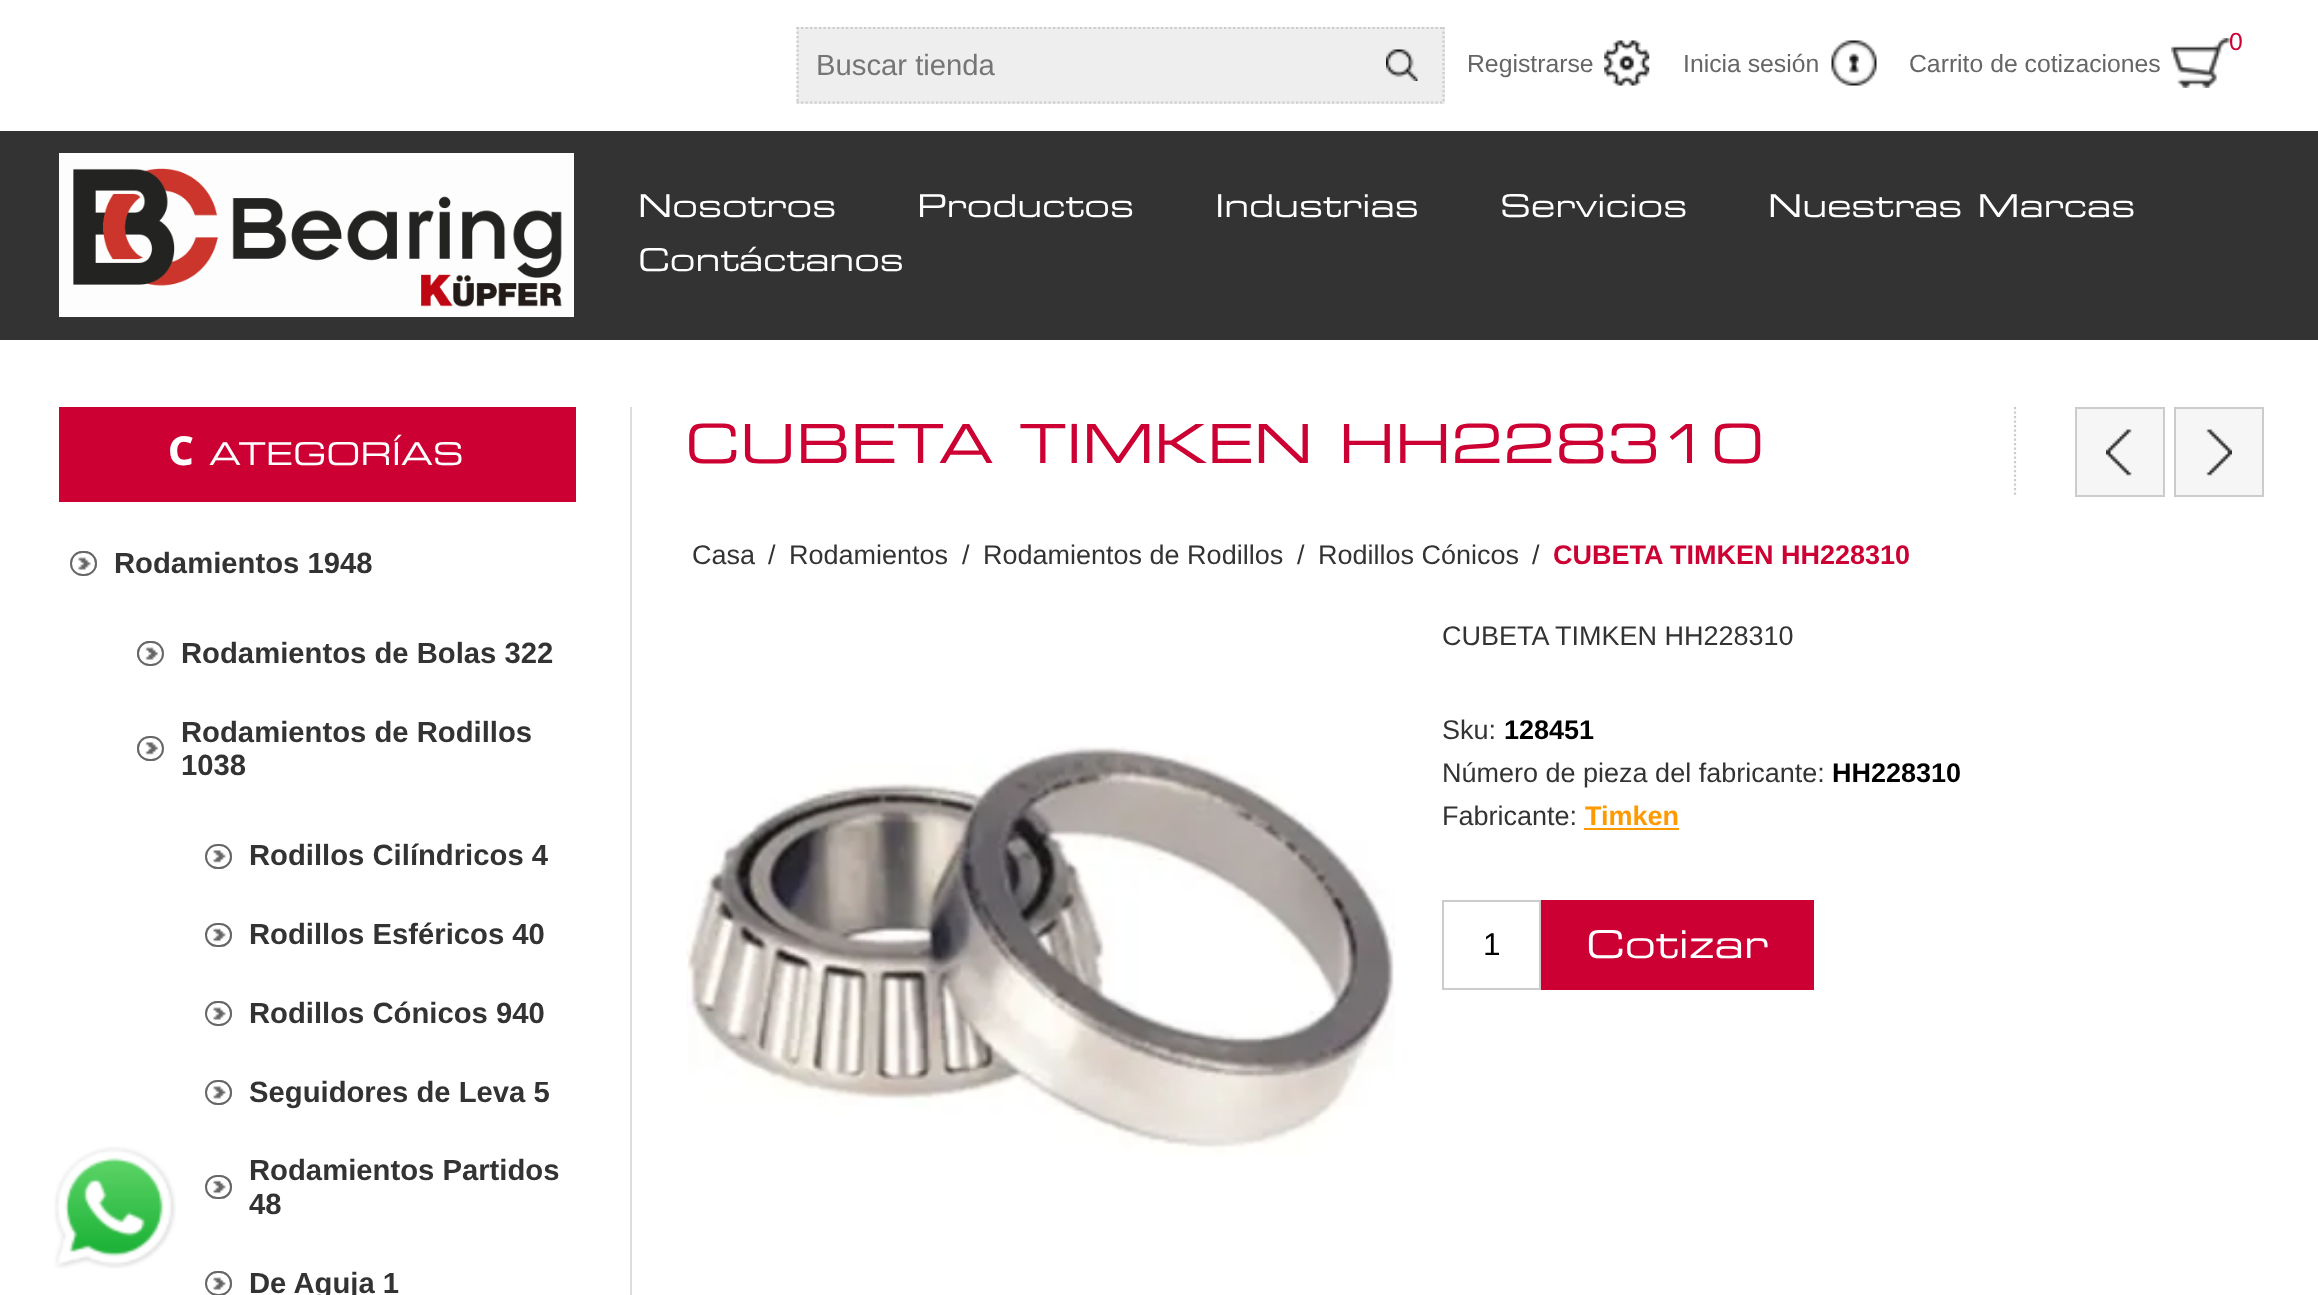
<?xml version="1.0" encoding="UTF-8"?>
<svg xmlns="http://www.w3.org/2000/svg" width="2318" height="1295">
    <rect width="100%" height="100%" fill="#FFFFFF"/>
    <rect x="797" y="27" width="648" height="77" fill="#EEEEEE"/>
    <path d="M 796.5 28 H 1444.5" fill="none" stroke="#CCCCCC" stroke-width="2.2" stroke-dasharray="2.25 2.25"/>
    <path d="M 1443.5 27 V 103.5" fill="none" stroke="#CCCCCC" stroke-width="2.2" stroke-dasharray="2.25 2.25"/>
    <path d="M 796.5 102.5 H 1444.5" fill="none" stroke="#CCCCCC" stroke-width="2.2" stroke-dasharray="2.25 2.25"/>
    <path d="M 797.5 27 V 103.5" fill="none" stroke="#CCCCCC" stroke-width="2.2" stroke-dasharray="2.25 2.25"/>
    <text x="816" y="75" font-family="Liberation Sans" font-size="29.25" fill="#757575">Buscar tienda</text>
    <image x="1386" y="49" width="32" height="32" href="img_01.png"/>
    <image x="1604" y="40" width="46" height="46" href="img_02.png"/>
    <text x="1467" y="72" font-family="Liberation Sans" font-size="24.75" fill="#666666">Registrarse</text>
    <image x="1831" y="40" width="46" height="46" href="img_03.png"/>
    <text x="1683" y="72" font-family="Liberation Sans" font-size="24.75" fill="#666666">Inicia sesión</text>
    <image x="2171" y="38" width="59" height="50" href="img_04.png"/>
    <text x="2229" y="50" font-family="Liberation Sans" font-size="24.75" fill="#CC0033">0</text>
    <text x="1909" y="72" font-family="Liberation Sans" font-size="24.75" fill="#666666">Carrito de cotizaciones</text>
    <rect x="0" y="131" width="2318" height="209" fill="#333333"/>
    <rect x="59" y="153" width="515" height="164" fill="#FDFDFD"/>
    <image x="73" y="168" width="489" height="139" href="img_05.png"/>
    <text x="638" y="217" font-family="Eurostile" font-size="31.5" fill="#FFFFFF">Nosotros</text>
    <text x="917" y="217" font-family="Eurostile" font-size="31.5" fill="#FFFFFF">Productos</text>
    <text x="1215" y="217" font-family="Eurostile" font-size="31.5" fill="#FFFFFF">Industrias</text>
    <text x="1500" y="217" font-family="Eurostile" font-size="31.5" fill="#FFFFFF">Servicios</text>
    <text x="1768" y="217" font-family="Eurostile" font-size="31.5" fill="#FFFFFF">Nuestras Marcas</text>
    <text x="638" y="271" font-family="Eurostile" font-size="31.5" fill="#FFFFFF">Contáctanos</text>
    <rect x="59" y="407" width="517" height="95" fill="#CC0033"/>
    <text x="168" y="465" font-family="Noto Sans" font-size="40" font-weight="800" fill="#FFFFFF">C</text>
    <text x="209" y="465" font-family="Eurostile" font-size="31.5" fill="#FFFFFF">ATEGORÍAS</text>
    <rect x="70" y="551" width="27" height="25" rx="12.5" fill="#666666"/>
    <image x="70" y="551" width="27" height="25" href="img_06.png"/>
    <rect x="71" y="552" width="25" height="23" rx="11.5" fill="none" stroke="#666666" stroke-width="2"/>
    <text x="114" y="573" font-family="Liberation Sans" font-size="29.25" font-weight="700" fill="#333333">Rodamientos 1948</text>
    <rect x="137" y="641" width="27" height="25" rx="12.5" fill="#666666"/>
    <image x="137" y="641" width="27" height="25" href="img_07.png"/>
    <rect x="138" y="642" width="25" height="23" rx="11.5" fill="none" stroke="#666666" stroke-width="2"/>
    <text x="181" y="663" font-family="Liberation Sans" font-size="29.25" font-weight="700" fill="#333333">Rodamientos de Bolas 322</text>
    <text x="181" y="742" font-family="Liberation Sans" font-size="29.25" font-weight="700" fill="#333333">Rodamientos de Rodillos</text>
    <rect x="137" y="736" width="27" height="25" rx="12.5" fill="#666666"/>
    <image x="137" y="736" width="27" height="25" href="img_08.png"/>
    <rect x="138" y="737" width="25" height="23" rx="11.5" fill="none" stroke="#666666" stroke-width="2"/>
    <text x="181" y="775" font-family="Liberation Sans" font-size="29.25" font-weight="700" fill="#333333">1038</text>
    <rect x="205" y="844" width="27" height="25" rx="12.5" fill="#666666"/>
    <image x="205" y="844" width="27" height="25" href="img_09.png"/>
    <rect x="206" y="845" width="25" height="23" rx="11.5" fill="none" stroke="#666666" stroke-width="2"/>
    <text x="249" y="865" font-family="Liberation Sans" font-size="29.25" font-weight="700" fill="#333333">Rodillos Cilíndricos 4</text>
    <rect x="205" y="923" width="27" height="24" rx="12" fill="#666666"/>
    <image x="205" y="923" width="27" height="24" href="img_10.png"/>
    <rect x="206" y="924" width="25" height="22" rx="11" fill="none" stroke="#666666" stroke-width="2"/>
    <text x="249" y="944" font-family="Liberation Sans" font-size="29.25" font-weight="700" fill="#333333">Rodillos Esféricos 40</text>
    <rect x="205" y="1001" width="27" height="25" rx="12.5" fill="#666666"/>
    <image x="205" y="1001" width="27" height="25" href="img_11.png"/>
    <rect x="206" y="1002" width="25" height="23" rx="11.5" fill="none" stroke="#666666" stroke-width="2"/>
    <text x="249" y="1023" font-family="Liberation Sans" font-size="29.25" font-weight="700" fill="#333333">Rodillos Cónicos 940</text>
    <rect x="205" y="1080" width="27" height="25" rx="12.5" fill="#666666"/>
    <image x="205" y="1080" width="27" height="25" href="img_12.png"/>
    <rect x="206" y="1081" width="25" height="23" rx="11.5" fill="none" stroke="#666666" stroke-width="2"/>
    <text x="249" y="1102" font-family="Liberation Sans" font-size="29.25" font-weight="700" fill="#333333">Seguidores de Leva 5</text>
    <text x="249" y="1180" font-family="Liberation Sans" font-size="29.25" font-weight="700" fill="#333333">Rodamientos Partidos</text>
    <rect x="205" y="1175" width="27" height="24" rx="12" fill="#666666"/>
    <image x="205" y="1175" width="27" height="24" href="img_10.png"/>
    <rect x="206" y="1176" width="25" height="22" rx="11" fill="none" stroke="#666666" stroke-width="2"/>
    <text x="249" y="1214" font-family="Liberation Sans" font-size="29.25" font-weight="700" fill="#333333">48</text>
    <rect x="205" y="1271" width="27" height="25" rx="12.5" fill="#666666"/>
    <image x="205" y="1271" width="27" height="24" href="img_13.png"/>
    <rect x="206" y="1272" width="25" height="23" rx="11.5" fill="none" stroke="#666666" stroke-width="2"/>
    <text x="249" y="1293" font-family="Liberation Sans" font-size="29.25" font-weight="700" fill="#333333">De Aguja 1</text>
    <rect x="630" y="407" width="2" height="888" fill="#DDDDDD"/>
    <path d="M 2015 407 V 497" fill="none" stroke="#CCCCCC" stroke-width="2.2" stroke-dasharray="2.25 2.25"/>
    <text x="685" y="463" font-family="Eurostile" font-size="54" fill="#CC0033">CUBETA TIMKEN HH228310</text>
    <rect x="2077" y="409" width="86" height="86" fill="#F6F6F6"/>
    <image x="2106" y="429" width="26" height="47" href="img_14.png"/>
    <rect x="2076" y="408" width="88" height="88" fill="none" stroke="#CCCCCC" stroke-width="2"/>
    <rect x="2176" y="409" width="86" height="86" fill="#F6F6F6"/>
    <image x="2206" y="429" width="26" height="47" href="img_15.png"/>
    <rect x="2175" y="408" width="88" height="88" fill="none" stroke="#CCCCCC" stroke-width="2"/>
    <text x="692" y="564" font-family="Liberation Sans" font-size="27" fill="#333333">Casa</text>
    <text x="768" y="564" font-family="Liberation Sans" font-size="27" fill="#333333">/</text>
    <text x="789" y="564" font-family="Liberation Sans" font-size="27" fill="#333333">Rodamientos</text>
    <text x="962" y="564" font-family="Liberation Sans" font-size="27" fill="#333333">/</text>
    <text x="983" y="564" font-family="Liberation Sans" font-size="27" fill="#333333">Rodamientos de Rodillos</text>
    <text x="1297" y="564" font-family="Liberation Sans" font-size="27" fill="#333333">/</text>
    <text x="1318" y="564" font-family="Liberation Sans" font-size="27" fill="#333333">Rodillos Cónicos</text>
    <text x="1532" y="564" font-family="Liberation Sans" font-size="27" fill="#333333">/</text>
    <text x="1553" y="564" font-family="Liberation Sans" font-size="27" font-weight="700" fill="#CC0033">CUBETA TIMKEN HH228310</text>
    <image x="686" y="746" width="709" height="410" href="img_16.png"/>
    <text x="1442" y="645" font-family="Liberation Sans" font-size="27" fill="#333333">CUBETA TIMKEN HH228310</text>
    <text x="1442" y="739" font-family="Liberation Sans" font-size="27" fill="#333333">Sku:</text>
    <text x="1504" y="739" font-family="Liberation Sans" font-size="27" font-weight="700" fill="#000000">128451</text>
    <text x="1442" y="782" font-family="Liberation Sans" font-size="27" fill="#333333">Número de pieza del fabricante:</text>
    <text x="1832" y="782" font-family="Liberation Sans" font-size="27" font-weight="700" fill="#000000">HH228310</text>
    <text x="1442" y="825" font-family="Liberation Sans" font-size="27" fill="#333333">Fabricante:</text>
    <text x="1585" y="825" font-family="Liberation Sans" font-size="27" font-weight="700" fill="#FF9900">Timken</text>
    <rect x="1584" y="828" width="95" height="2" fill="#FF9900"/>
    <rect x="1443" y="901" width="97" height="88" fill="none" stroke="#CCCCCC" stroke-width="2"/>
    <text x="1483" y="955" font-family="Liberation Sans" font-size="31.5" fill="#000000">1</text>
    <rect x="1541" y="900" width="273" height="90" fill="#CC0033"/>
    <text x="1586" y="958" font-family="Eurostile" font-size="38.25" fill="#FFFFFF">Cotizar</text>
    <image x="54" y="1146" width="122" height="123" href="img_17.png"/>
</svg>
